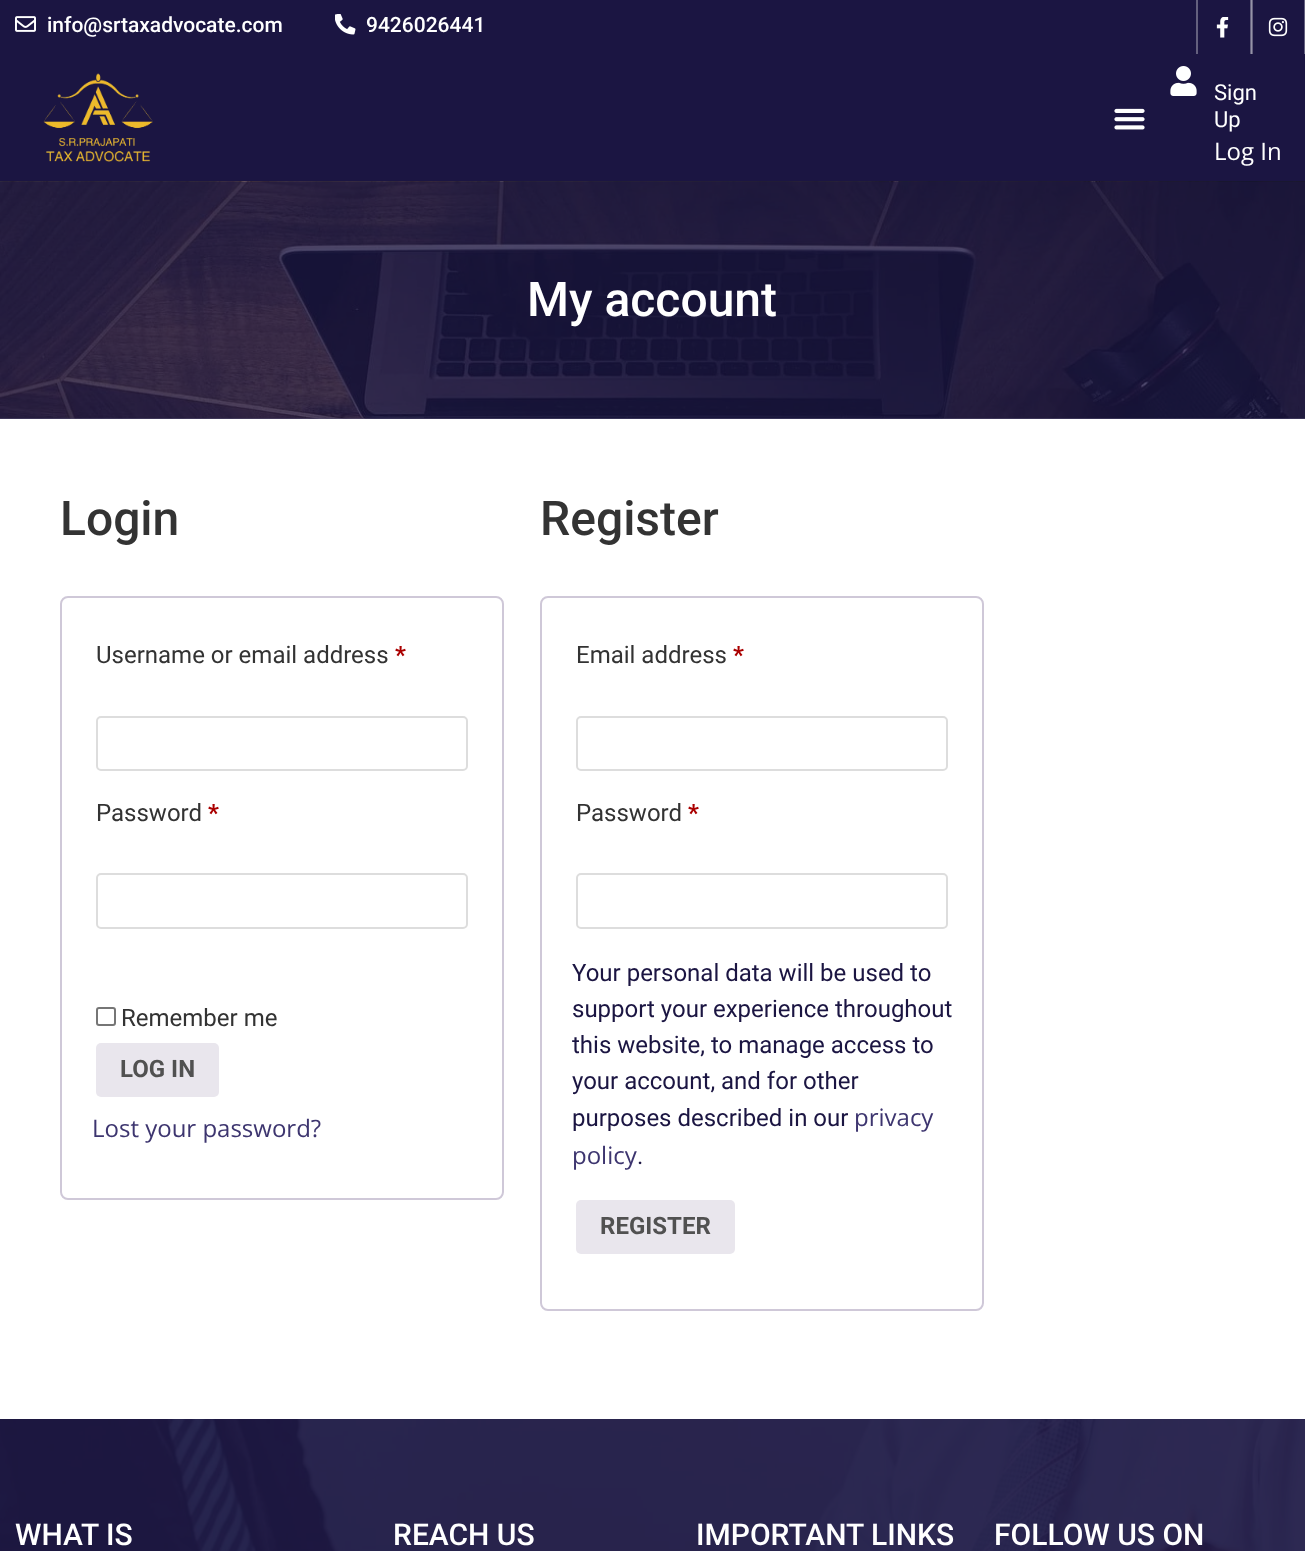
<?xml version="1.0" encoding="UTF-8"?>
<svg xmlns="http://www.w3.org/2000/svg" width="1305" height="1551">
    <rect width="100%" height="100%" fill="#FFFFFF"/>
    <rect x="0" y="0" width="1304" height="54" fill="#1B1542"/>
    <rect x="1252" y="0" width="1" height="54" fill="#64607E"/>
    <image x="15" y="16" width="21" height="16" href="img_01.png"/>
    <text x="47" y="32" font-family="Roboto" font-size="21" font-weight="500" fill="#FFFFFF">info@srtaxadvocate.com</text>
    <image x="335" y="14" width="21" height="21" href="img_02.png"/>
    <text x="366" y="32" font-family="Roboto" font-size="21" font-weight="500" fill="#FFFFFF">9426026441</text>
    <rect x="1250" y="0" width="1" height="54" fill="#64607E"/>
    <rect x="1251" y="0" width="1" height="54" fill="#9693A7"/>
    <rect x="1196" y="0" width="2" height="54" fill="#64607E"/>
    <image x="1216" y="17" width="13" height="21" href="img_03.png"/>
    <rect x="1304" y="0" width="1" height="54" fill="#64607E"/>
    <image x="1268" y="17" width="20" height="20" href="img_04.png"/>
    <rect x="0" y="54" width="1305" height="128" fill="#1B1542"/>
    <image x="43" y="73" width="110" height="89" href="img_05.png"/>
    <image x="1114" y="108" width="31" height="22" href="img_06.png"/>
    <image x="1170" y="66" width="27" height="30" href="img_07.png"/>
    <text font-family="Roboto" font-size="22" fill="#FFFFFF">
        <tspan x="1214" y="100">Sign</tspan>
        <tspan x="1214" y="127">Up</tspan>
    </text>
    <text x="1214" y="160" font-family="Open Sans" font-size="24" fill="#FFFFFF">Log In</text>
    <image x="0" y="181" width="1305" height="238" href="img_08.png"/>
    <rect x="0" y="182" width="1305" height="237" fill="#1B1542" fill-opacity="0.76"/>
    <text x="527" y="316" font-family="Roboto" font-size="48" font-weight="500" fill="#FFFFFF">My account</text>
    <text x="60" y="535" font-family="Roboto" font-size="48" font-weight="500" fill="#333333">Login</text>
    <rect x="61" y="597" width="442" height="602" rx="7" fill="none" stroke="#CFC8D8" stroke-width="2"/>
    <text x="96" y="663" font-family="Roboto" font-size="24" fill="#333333">Username or email address</text>
    <text x="395" y="663" font-family="Roboto" font-size="24" font-weight="700" fill="#AA0000">*</text>
    <rect x="97" y="717" width="370" height="53" rx="4" fill="none" stroke="#DDDDDD" stroke-width="2"/>
    <text x="96" y="821" font-family="Roboto" font-size="24" fill="#333333">Password</text>
    <text x="208" y="821" font-family="Roboto" font-size="24" font-weight="700" fill="#AA0000">*</text>
    <rect x="97" y="874" width="370" height="54" rx="4" fill="none" stroke="#DDDDDD" stroke-width="2"/>
    <rect x="97" y="1008" width="18" height="17" rx="2" fill="none" stroke="#767676" stroke-width="2"/>
    <text x="121" y="1026" font-family="Roboto" font-size="24" fill="#333333">Remember me</text>
    <rect x="96" y="1043" width="123" height="54" rx="5" fill="#E9E6ED"/>
    <text x="120" y="1077" font-family="Roboto" font-size="24" font-weight="700" fill="#515151">LOG IN</text>
    <text x="92" y="1137" font-family="Open Sans" font-size="24" fill="#3D356F">Lost your password?</text>
    <text x="540" y="535" font-family="Roboto" font-size="48" font-weight="500" fill="#333333">Register</text>
    <rect x="541" y="597" width="442" height="713" rx="7" fill="none" stroke="#CFC8D8" stroke-width="2"/>
    <text x="576" y="663" font-family="Roboto" font-size="24" fill="#333333">Email address</text>
    <text x="733" y="663" font-family="Roboto" font-size="24" font-weight="700" fill="#AA0000">*</text>
    <rect x="577" y="717" width="370" height="53" rx="4" fill="none" stroke="#DDDDDD" stroke-width="2"/>
    <text x="576" y="821" font-family="Roboto" font-size="24" fill="#333333">Password</text>
    <text x="688" y="821" font-family="Roboto" font-size="24" font-weight="700" fill="#AA0000">*</text>
    <rect x="577" y="874" width="370" height="54" rx="4" fill="none" stroke="#DDDDDD" stroke-width="2"/>
    <text font-family="Roboto" font-size="24" fill="#1B1542">
        <tspan x="572" y="981">Your personal data will be used to</tspan>
        <tspan x="572" y="1017">support your experience throughout</tspan>
        <tspan x="572" y="1053">this website, to manage access to</tspan>
        <tspan x="572" y="1089">your account, and for other</tspan>
        <tspan x="572" y="1126">purposes described in our</tspan>
    </text>
    <text x="854" y="1126" font-family="Open Sans" font-size="24" fill="#3D356F">privacy</text>
    <text x="572" y="1164" font-family="Open Sans" font-size="24" fill="#3D356F">policy</text>
    <text x="637" y="1164" font-family="Roboto" font-size="24" fill="#1B1542">.</text>
    <rect x="576" y="1200" width="159" height="54" rx="5" fill="#E9E6ED"/>
    <text x="600" y="1234" font-family="Roboto" font-size="24" font-weight="700" fill="#515151">REGISTER</text>
    <image x="0" y="1419" width="1305" height="132" href="img_09.png"/>
    <text x="15" y="1545" font-family="Roboto" font-size="30" font-weight="500" fill="#FFFFFF">WHAT IS</text>
    <text x="393" y="1545" font-family="Roboto" font-size="30" font-weight="500" fill="#FFFFFF">REACH US</text>
    <text x="696" y="1545" font-family="Roboto" font-size="30" font-weight="500" fill="#FFFFFF">IMPORTANT LINKS</text>
    <text x="994" y="1545" font-family="Roboto" font-size="30" font-weight="500" fill="#FFFFFF">FOLLOW US ON</text>
</svg>
